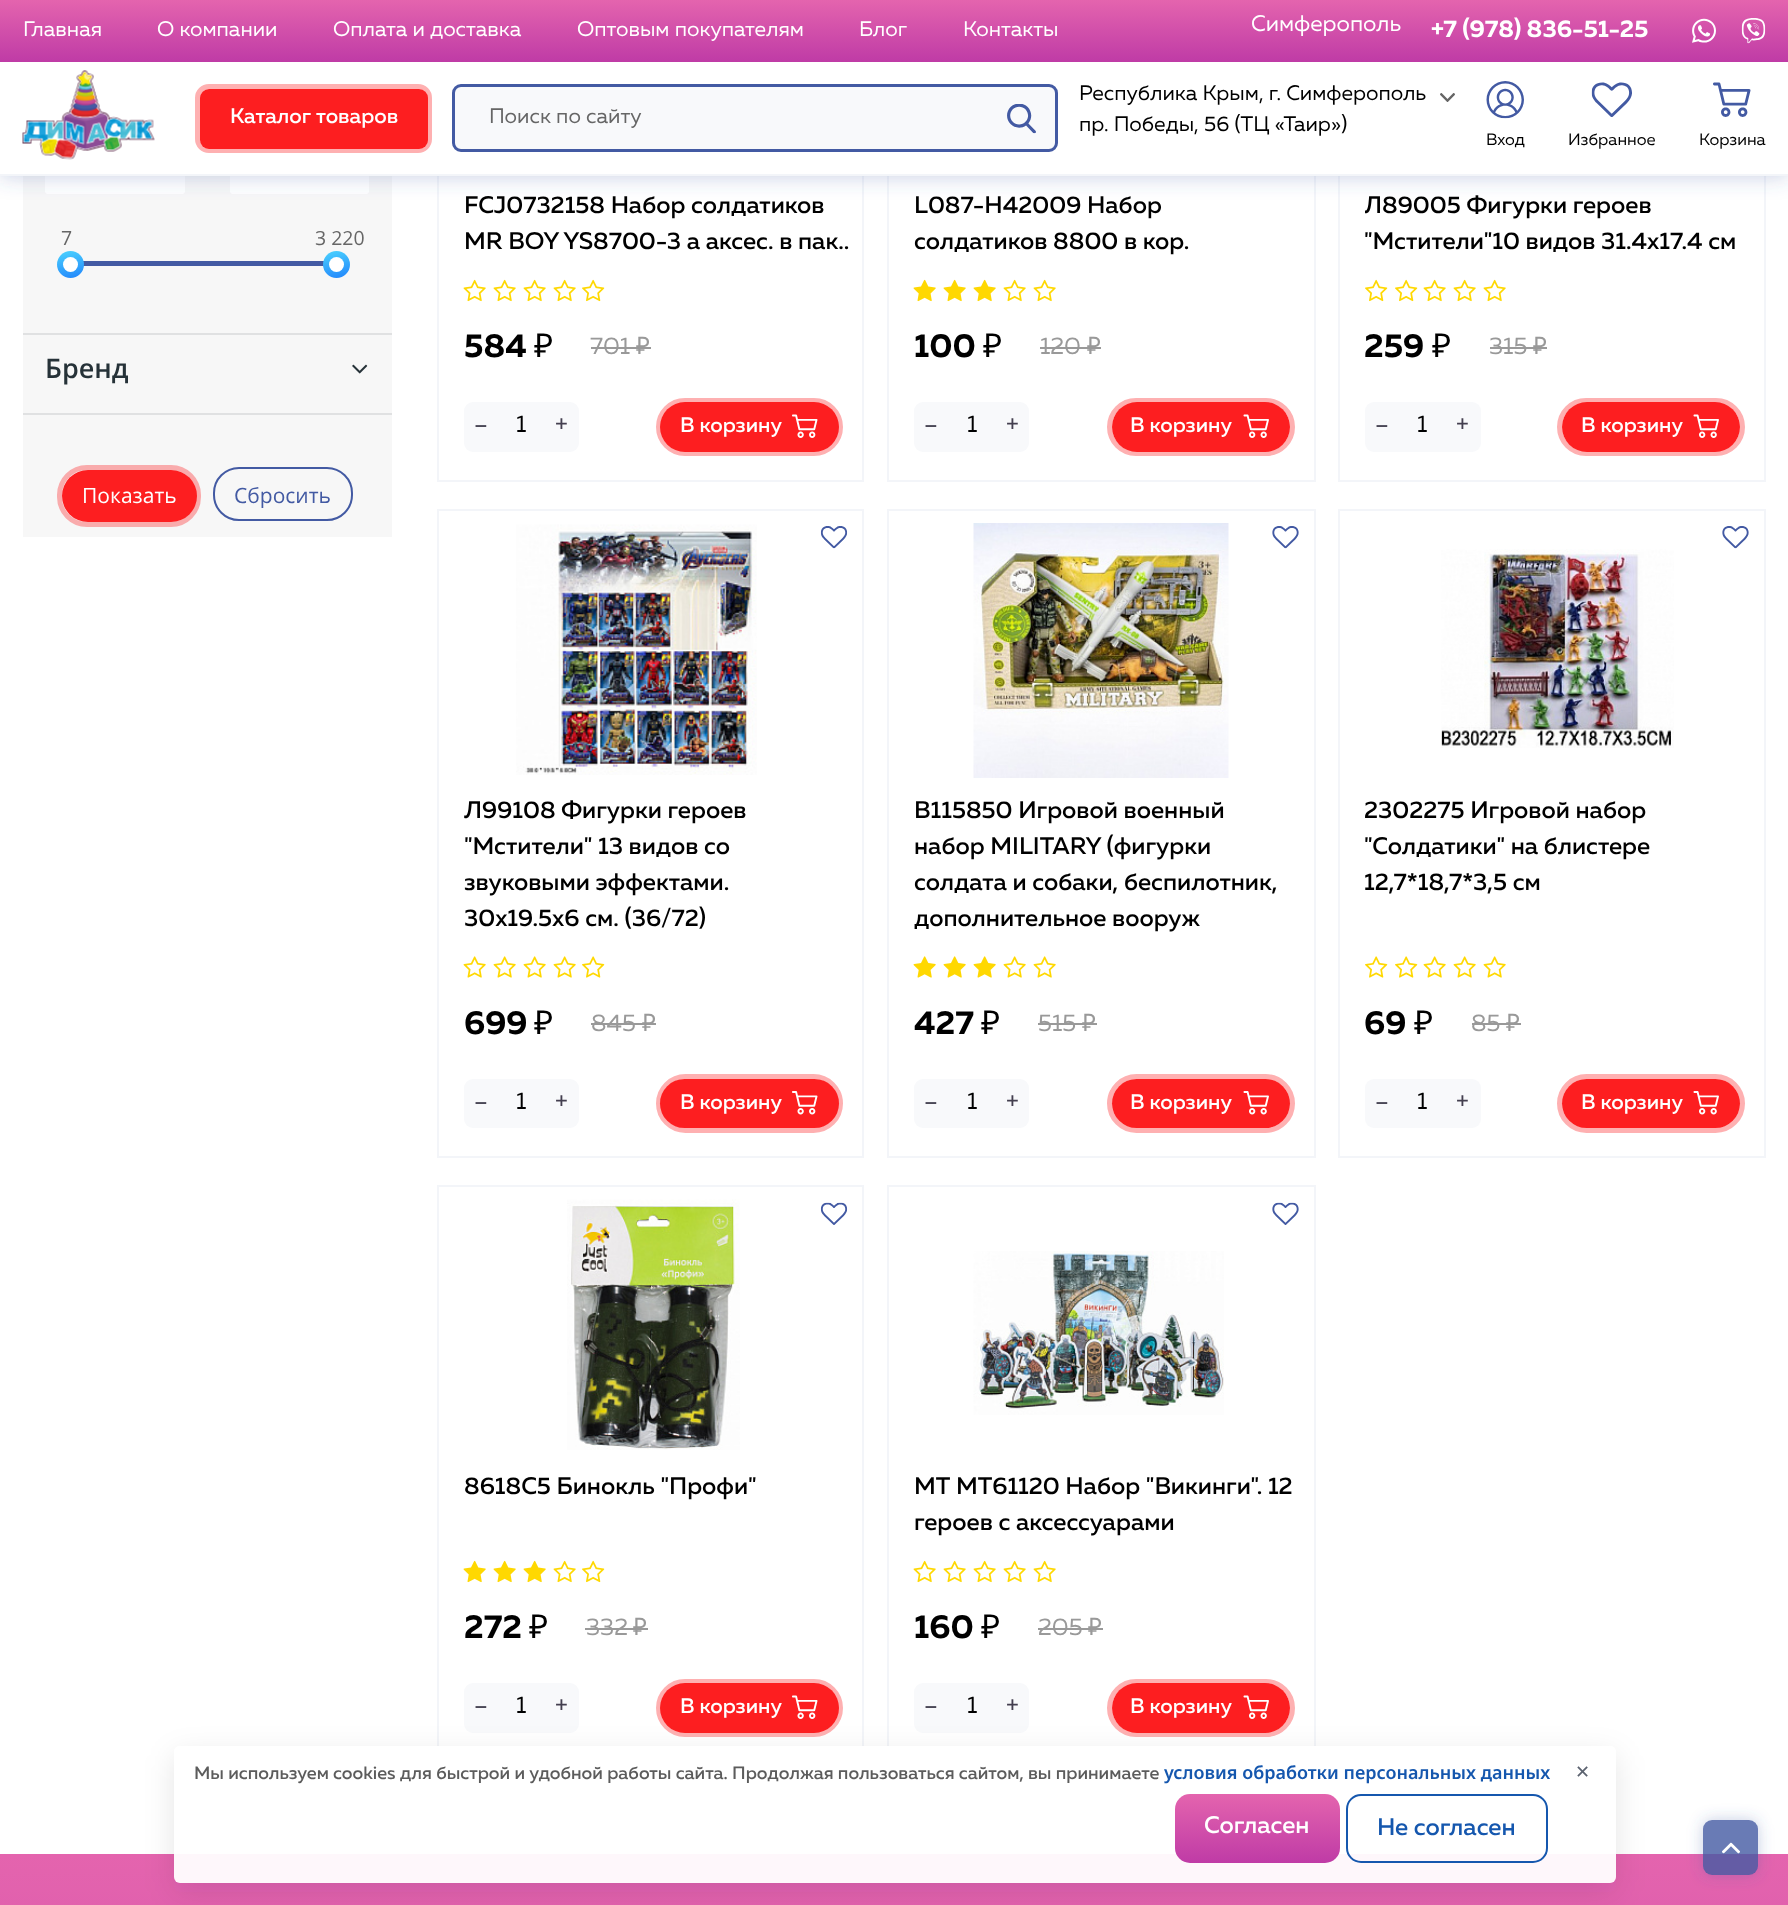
<?xml version="1.0" encoding="UTF-8"?>
<svg xmlns="http://www.w3.org/2000/svg" width="1788" height="1905">
    <defs>
        <filter id="blur1" x="-50%" y="-200%" width="200%" height="500%"><feGaussianBlur stdDeviation="11"/></filter>
        <linearGradient id="g1" gradientUnits="userSpaceOnUse" x1="894" y1="62" x2="894" y2="0"><stop offset="0" stop-color="#BF3BA6"/><stop offset="1" stop-color="#E464AE"/></linearGradient>
        <linearGradient id="g2" gradientUnits="userSpaceOnUse" x1="67" y1="248" x2="74" y2="280"><stop offset="0.04" stop-color="#4BD2FE"/><stop offset="0.95" stop-color="#2389FC"/></linearGradient>
        <linearGradient id="g3" gradientUnits="userSpaceOnUse" x1="332" y1="248" x2="340" y2="280"><stop offset="0.04" stop-color="#4BD2FE"/><stop offset="0.95" stop-color="#2389FC"/></linearGradient>
        <clipPath id="clip1"><rect x="1365" y="189" width="386" height="72"/></clipPath>
        <clipPath id="clip2"><rect x="464" y="794" width="385" height="144"/></clipPath>
        <linearGradient id="g4" gradientUnits="userSpaceOnUse" x1="894" y1="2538" x2="894" y2="1854"><stop offset="0" stop-color="#BF3BA6"/><stop offset="1" stop-color="#E464AE"/></linearGradient>
        <clipPath id="clip3"><path d="M 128 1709 H 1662 V 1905 H 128 Z M 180 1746 H 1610 C 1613.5 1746 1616 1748.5 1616 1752 V 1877 C 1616 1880.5 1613.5 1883 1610 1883 H 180 C 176.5 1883 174 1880.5 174 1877 V 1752 C 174 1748.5 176.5 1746 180 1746 Z" clip-rule="evenodd"/></clipPath>
        <filter id="blur2" x="-50%" y="-200%" width="200%" height="500%"><feGaussianBlur stdDeviation="15"/></filter>
        <linearGradient id="g5" gradientUnits="userSpaceOnUse" x1="1256" y1="1863" x2="1256" y2="1794"><stop offset="0" stop-color="#BF3BA6"/><stop offset="1" stop-color="#E464AE"/></linearGradient>
        <clipPath id="clip4"><path d="M 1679 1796 H 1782 V 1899 H 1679 Z M 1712 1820 H 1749 C 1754 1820 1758 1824 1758 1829 V 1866 C 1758 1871 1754 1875 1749 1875 H 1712 C 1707 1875 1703 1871 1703 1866 V 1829 C 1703 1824 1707 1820 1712 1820 Z" clip-rule="evenodd"/></clipPath>
        <filter id="blur3" x="-50%" y="-200%" width="200%" height="500%"><feGaussianBlur stdDeviation="7.5"/></filter>
    </defs>
    <rect width="100%" height="100%" fill="#FFFFFF"/>
    <rect x="23" y="176" width="369" height="361" fill="#F7F7F7"/>
    <rect x="45" y="137" width="140" height="57" rx="3" fill="#FFFFFF"/>
    <rect x="230" y="137" width="139" height="57" rx="3" fill="#FFFFFF"/>
    <rect x="438" y="-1" width="425" height="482" fill="none" stroke="#F3F5F9" stroke-width="2"/>
    <rect x="888" y="-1" width="427" height="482" fill="none" stroke="#F3F5F9" stroke-width="2"/>
    <rect x="1339" y="-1" width="426" height="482" fill="none" stroke="#F3F5F9" stroke-width="2"/>
    <rect x="0" y="0" width="1788" height="176" fill="#435AA3" fill-opacity="0.3" filter="url(#blur1)"/>
    <rect x="0" y="62" width="1788" height="112" fill="#FFFFFF"/>
    <rect x="0" y="174" width="1788" height="2" fill="#F3F5F9"/>
    <rect x="0" y="0" width="1788" height="62" fill="url(#g1)"/>
    <text x="23" y="36" font-family="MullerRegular" font-size="21" fill="#FFFFFF">Главная</text>
    <text x="157" y="36" font-family="MullerRegular" font-size="21" fill="#FFFFFF">О компании</text>
    <text x="333" y="36" font-family="MullerRegular" font-size="21" fill="#FFFFFF">Оплата и доставка</text>
    <text x="577" y="36" font-family="MullerRegular" font-size="21" fill="#FFFFFF">Оптовым покупателям</text>
    <text x="859" y="36" font-family="MullerRegular" font-size="21" fill="#FFFFFF">Блог</text>
    <text x="963" y="36" font-family="MullerRegular" font-size="21" fill="#FFFFFF">Контакты</text>
    <text x="1251" y="31" font-family="MullerRegular" font-size="22.5" fill="#FFFFFF">Симферополь</text>
    <text x="1431" y="37" font-family="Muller" font-size="24" font-weight="700" fill="#FFFFFF">+7 (978) 836-51-25</text>
    <image x="1692" y="18" width="24" height="25" href="img_01.png"/>
    <image x="1741" y="18" width="25" height="26" href="img_02.png"/>
    <image x="22" y="70" width="133" height="90" href="img_03.png"/>
    <rect x="197.5" y="86.5" width="232" height="64" rx="11.5" fill="none" stroke="#FEB0B1" stroke-width="5"/>
    <rect x="200" y="89" width="228" height="60" rx="9" fill="#FD1E20"/>
    <text x="230" y="123" font-family="Muller" font-size="21" font-weight="500" fill="#FFFFFF">Каталог товаров</text>
    <rect x="453.5" y="85.5" width="603" height="65" rx="7.5" fill="#F8F9FB" stroke="#435AA3" stroke-width="3"/>
    <text x="489" y="123" font-family="MullerRegular" font-size="21" fill="#666666">Поиск по сайту</text>
    <image x="1007" y="104" width="29" height="30" href="img_04.png"/>
    <text font-family="MullerRegular" font-size="21" fill="#000000">
        <tspan x="1079" y="100">Республика Крым, г. Симферополь</tspan>
        <tspan x="1079" y="131">пр. Победы, 56 (ТЦ «Таир»)</tspan>
    </text>
    <image x="1440" y="93" width="15" height="9" href="img_05.png"/>
    <image x="1486" y="81" width="38" height="38" href="img_06.png"/>
    <text x="1486" y="145" font-family="MullerRegular" font-size="16.5" fill="#000000">Вход</text>
    <image x="1591" y="82" width="41" height="35" href="img_07.png"/>
    <text x="1568" y="145" font-family="MullerRegular" font-size="16.5" fill="#000000">Избранное</text>
    <image x="1713" y="82" width="38" height="35" href="img_08.png"/>
    <text x="1699" y="145" font-family="MullerRegular" font-size="16.5" fill="#000000">Корзина</text>
    <rect x="23" y="333" width="369" height="2" fill="#E0E1E2"/>
    <text x="61" y="245" font-family="Open Sans" font-size="19.5" fill="#666666">7</text>
    <text x="315" y="245" font-family="Open Sans" font-size="19.5" fill="#666666">3 220</text>
    <rect x="83" y="261" width="241" height="5" fill="#435AA3"/>
    <circle cx="70.5" cy="264.5" r="13.5" fill="url(#g2)"/>
    <circle cx="70.5" cy="264.5" r="7.5" fill="#FFFFFF"/>
    <circle cx="336.5" cy="264.5" r="13.5" fill="url(#g3)"/>
    <circle cx="336.5" cy="264.5" r="7.5" fill="#FFFFFF"/>
    <rect x="23" y="413" width="369" height="2" fill="#E0E1E2"/>
    <text x="45" y="378" font-family="Open Sans" font-size="27" font-weight="600" fill="#263238">Бренд</text>
    <image x="352" y="364" width="16" height="10" href="img_09.png"/>
    <rect x="59.5" y="467.5" width="139" height="57" rx="27.5" fill="none" stroke="#F9ABAC" stroke-width="5"/>
    <rect x="62" y="470" width="135" height="52" rx="26" fill="#FD1E20"/>
    <text x="82" y="503" font-family="Open Sans" font-size="21" fill="#FFFFFF">Показать</text>
    <rect x="214" y="468" width="138" height="52" rx="25" fill="none" stroke="#435AA3" stroke-width="2"/>
    <text x="234" y="503" font-family="Open Sans" font-size="21" fill="#435AA3">Сбросить</text>
    <text font-family="Muller" font-size="24" font-weight="500" fill="#000000">
        <tspan x="464" y="213">FCJ0732158 Набор солдатиков</tspan>
        <tspan x="464" y="249">MR BOY YS8700-3 а аксес. в пак..</tspan>
    </text>
    <image x="463" y="279" width="23" height="23" href="img_10.png"/>
    <image x="493" y="279" width="23" height="23" href="img_10.png"/>
    <image x="523" y="279" width="23" height="23" href="img_10.png"/>
    <image x="553" y="279" width="23" height="23" href="img_10.png"/>
    <image x="582" y="279" width="23" height="23" href="img_11.png"/>
    <text x="464" y="357" font-family="Muller" font-size="33" font-weight="700" fill="#000000">584</text>
    <text x="534" y="357" font-family="Noto Sans" font-size="33" fill="#000000">₽</text>
    <text x="590" y="354" font-family="MullerRegular" font-size="24" fill="#999999">701</text>
    <rect x="591" y="347" width="60" height="2" fill="#999999"/>
    <text x="636" y="354" font-family="Noto Sans" font-size="24" fill="#999999">₽</text>
    <rect x="464" y="402" width="115" height="50" rx="9" fill="#F8F9FB"/>
    <text x="474" y="432" font-family="MullerRegular" font-size="24" fill="#433F4F">–</text>
    <text x="516" y="432" font-family="MullerRegular" font-size="24" fill="#000000">1</text>
    <text x="555" y="432" font-family="MullerRegular" font-size="24" fill="#433F4F">+</text>
    <rect x="658.5" y="400.5" width="182" height="53" rx="26.5" fill="none" stroke="#FEB0B1" stroke-width="5"/>
    <rect x="660" y="402" width="179" height="50" rx="25" fill="#FD1E20"/>
    <text x="680" y="432" font-family="Muller" font-size="21" font-weight="500" fill="#FFFFFF">В корзину</text>
    <image x="792" y="414" width="26" height="24" href="img_12.png"/>
    <text font-family="Muller" font-size="24" font-weight="500" fill="#000000">
        <tspan x="914" y="213">L087-H42009 Набор</tspan>
        <tspan x="914" y="249">солдатиков 8800 в кор.</tspan>
    </text>
    <image x="913" y="279" width="23" height="23" href="img_13.png"/>
    <image x="943" y="279" width="23" height="23" href="img_13.png"/>
    <image x="973" y="279" width="23" height="23" href="img_13.png"/>
    <image x="1003" y="279" width="23" height="23" href="img_10.png"/>
    <image x="1033" y="279" width="23" height="23" href="img_10.png"/>
    <text x="914" y="357" font-family="Muller" font-size="33" font-weight="700" fill="#000000">100</text>
    <text x="983" y="357" font-family="Noto Sans" font-size="33" fill="#000000">₽</text>
    <text x="1040" y="354" font-family="MullerRegular" font-size="24" fill="#999999">120</text>
    <rect x="1040" y="347" width="61" height="2" fill="#999999"/>
    <text x="1087" y="354" font-family="Noto Sans" font-size="24" fill="#999999">₽</text>
    <rect x="914" y="402" width="115" height="50" rx="9" fill="#F8F9FB"/>
    <text x="924" y="432" font-family="MullerRegular" font-size="24" fill="#433F4F">–</text>
    <text x="967" y="432" font-family="MullerRegular" font-size="24" fill="#000000">1</text>
    <text x="1006" y="432" font-family="MullerRegular" font-size="24" fill="#433F4F">+</text>
    <rect x="1109.5" y="400.5" width="183" height="53" rx="26.5" fill="none" stroke="#FEB0B1" stroke-width="5"/>
    <rect x="1112" y="402" width="178" height="50" rx="25" fill="#FD1E20"/>
    <text x="1130" y="432" font-family="Muller" font-size="21" font-weight="500" fill="#FFFFFF">В корзину</text>
    <image x="1243" y="414" width="26" height="24" href="img_14.png"/>
    <g clip-path="url(#clip1)">
        <text x="1364" y="213" font-family="Muller" font-size="24" font-weight="500" fill="#000000">Л89005 Фигурки героев</text>
    </g>
    <text x="1364" y="249" font-family="Muller" font-size="24" font-weight="500" fill="#000000">"Мстители"10 видов 31.4х17.4 см</text>
    <image x="1365" y="279" width="23" height="23" href="img_11.png"/>
    <image x="1395" y="279" width="23" height="23" href="img_11.png"/>
    <image x="1423" y="279" width="23" height="23" href="img_10.png"/>
    <image x="1453" y="279" width="23" height="23" href="img_10.png"/>
    <image x="1483" y="279" width="23" height="23" href="img_10.png"/>
    <text x="1364" y="357" font-family="Muller" font-size="33" font-weight="700" fill="#000000">259</text>
    <text x="1432" y="357" font-family="Noto Sans" font-size="33" fill="#000000">₽</text>
    <text x="1489" y="354" font-family="MullerRegular" font-size="24" fill="#999999">315</text>
    <rect x="1490" y="347" width="57" height="2" fill="#999999"/>
    <text x="1533" y="354" font-family="Noto Sans" font-size="24" fill="#999999">₽</text>
    <rect x="1365" y="402" width="116" height="50" rx="9" fill="#F8F9FB"/>
    <text x="1375" y="432" font-family="MullerRegular" font-size="24" fill="#433F4F">–</text>
    <text x="1417" y="432" font-family="MullerRegular" font-size="24" fill="#000000">1</text>
    <text x="1456" y="432" font-family="MullerRegular" font-size="24" fill="#433F4F">+</text>
    <rect x="1559.5" y="400.5" width="183" height="53" rx="26.5" fill="none" stroke="#FEB0B1" stroke-width="5"/>
    <rect x="1562" y="402" width="178" height="50" rx="25" fill="#FD1E20"/>
    <text x="1581" y="432" font-family="Muller" font-size="21" font-weight="500" fill="#FFFFFF">В корзину</text>
    <image x="1693" y="414" width="26" height="24" href="img_15.png"/>
    <rect x="438" y="510" width="425" height="647" fill="none" stroke="#F3F5F9" stroke-width="2"/>
    <image x="516" y="524" width="241" height="251" href="img_16.png"/>
    <image x="820" y="526" width="28" height="23" href="img_17.png"/>
    <g clip-path="url(#clip2)">
        <text x="464" y="818" font-family="Muller" font-size="24" font-weight="500" fill="#000000">Л99108 Фигурки героев</text>
    </g>
    <text font-family="Muller" font-size="24" font-weight="500" fill="#000000">
        <tspan x="464" y="854">"Мстители" 13 видов со</tspan>
        <tspan x="464" y="890">звуковыми эффектами.</tspan>
        <tspan x="464" y="926">30х19.5х6 см. (36/72)</tspan>
    </text>
    <image x="463" y="956" width="23" height="22" href="img_18.png"/>
    <image x="493" y="956" width="23" height="22" href="img_18.png"/>
    <image x="523" y="956" width="23" height="22" href="img_18.png"/>
    <image x="553" y="956" width="23" height="22" href="img_18.png"/>
    <image x="582" y="956" width="23" height="22" href="img_19.png"/>
    <text x="464" y="1034" font-family="Muller" font-size="33" font-weight="700" fill="#000000">699</text>
    <text x="534" y="1034" font-family="Noto Sans" font-size="33" fill="#000000">₽</text>
    <text x="591" y="1031" font-family="MullerRegular" font-size="24" fill="#999999">845</text>
    <rect x="591" y="1023" width="65" height="2" fill="#999999"/>
    <text x="642" y="1031" font-family="Noto Sans" font-size="24" fill="#999999">₽</text>
    <rect x="464" y="1079" width="115" height="49" rx="9" fill="#F8F9FB"/>
    <text x="474" y="1109" font-family="MullerRegular" font-size="24" fill="#433F4F">–</text>
    <text x="516" y="1109" font-family="MullerRegular" font-size="24" fill="#000000">1</text>
    <text x="555" y="1109" font-family="MullerRegular" font-size="24" fill="#433F4F">+</text>
    <rect x="658.5" y="1076.5" width="182" height="54" rx="27" fill="none" stroke="#FEB0B1" stroke-width="5"/>
    <rect x="660" y="1079" width="179" height="49" rx="24.5" fill="#FD1E20"/>
    <text x="680" y="1109" font-family="Muller" font-size="21" font-weight="500" fill="#FFFFFF">В корзину</text>
    <image x="792" y="1091" width="26" height="24" href="img_20.png"/>
    <rect x="888" y="510" width="427" height="647" fill="none" stroke="#F3F5F9" stroke-width="2"/>
    <image x="973" y="523" width="256" height="255" href="img_21.png"/>
    <image x="1272" y="526" width="27" height="23" href="img_22.png"/>
    <text font-family="Muller" font-size="24" font-weight="500" fill="#000000">
        <tspan x="914" y="818">В115850 Игровой военный</tspan>
        <tspan x="914" y="854">набор MILITARY (фигурки</tspan>
        <tspan x="914" y="890">солдата и собаки, беспилотник,</tspan>
        <tspan x="914" y="926">дополнительное вооруж</tspan>
    </text>
    <image x="913" y="956" width="23" height="22" href="img_23.png"/>
    <image x="943" y="956" width="23" height="22" href="img_23.png"/>
    <image x="973" y="956" width="23" height="22" href="img_23.png"/>
    <image x="1003" y="956" width="23" height="22" href="img_18.png"/>
    <image x="1033" y="956" width="23" height="22" href="img_18.png"/>
    <text x="914" y="1034" font-family="Muller" font-size="33" font-weight="700" fill="#000000">427</text>
    <text x="981" y="1034" font-family="Noto Sans" font-size="33" fill="#000000">₽</text>
    <text x="1038" y="1031" font-family="MullerRegular" font-size="24" fill="#999999">515</text>
    <rect x="1038" y="1023" width="59" height="2" fill="#999999"/>
    <text x="1082" y="1031" font-family="Noto Sans" font-size="24" fill="#999999">₽</text>
    <rect x="914" y="1079" width="115" height="49" rx="9" fill="#F8F9FB"/>
    <text x="924" y="1109" font-family="MullerRegular" font-size="24" fill="#433F4F">–</text>
    <text x="967" y="1109" font-family="MullerRegular" font-size="24" fill="#000000">1</text>
    <text x="1006" y="1109" font-family="MullerRegular" font-size="24" fill="#433F4F">+</text>
    <rect x="1109.5" y="1076.5" width="183" height="54" rx="27" fill="none" stroke="#FEB0B1" stroke-width="5"/>
    <rect x="1112" y="1079" width="178" height="49" rx="24.5" fill="#FD1E20"/>
    <text x="1130" y="1109" font-family="Muller" font-size="21" font-weight="500" fill="#FFFFFF">В корзину</text>
    <image x="1243" y="1091" width="26" height="24" href="img_24.png"/>
    <rect x="1339" y="510" width="426" height="647" fill="none" stroke="#F3F5F9" stroke-width="2"/>
    <image x="1722" y="526" width="27" height="23" href="img_22.png"/>
    <image x="1441" y="549" width="233" height="199" href="img_25.png"/>
    <text font-family="Muller" font-size="24" font-weight="500" fill="#000000">
        <tspan x="1364" y="818">2302275 Игровой набор</tspan>
        <tspan x="1364" y="854">"Солдатики" на блистере</tspan>
        <tspan x="1364" y="890">12,7*18,7*3,5 см</tspan>
    </text>
    <image x="1365" y="956" width="23" height="22" href="img_19.png"/>
    <image x="1395" y="956" width="23" height="22" href="img_19.png"/>
    <image x="1423" y="956" width="23" height="22" href="img_18.png"/>
    <image x="1453" y="956" width="23" height="22" href="img_18.png"/>
    <image x="1483" y="956" width="23" height="22" href="img_18.png"/>
    <text x="1364" y="1034" font-family="Muller" font-size="33" font-weight="700" fill="#000000">69</text>
    <text x="1414" y="1034" font-family="Noto Sans" font-size="33" fill="#000000">₽</text>
    <text x="1471" y="1031" font-family="MullerRegular" font-size="24" fill="#999999">85</text>
    <rect x="1472" y="1023" width="49" height="2" fill="#999999"/>
    <text x="1506" y="1031" font-family="Noto Sans" font-size="24" fill="#999999">₽</text>
    <rect x="1365" y="1079" width="116" height="49" rx="9" fill="#F8F9FB"/>
    <text x="1375" y="1109" font-family="MullerRegular" font-size="24" fill="#433F4F">–</text>
    <text x="1417" y="1109" font-family="MullerRegular" font-size="24" fill="#000000">1</text>
    <text x="1456" y="1109" font-family="MullerRegular" font-size="24" fill="#433F4F">+</text>
    <rect x="1559.5" y="1076.5" width="183" height="54" rx="27" fill="none" stroke="#FEB0B1" stroke-width="5"/>
    <rect x="1562" y="1079" width="178" height="49" rx="24.5" fill="#FD1E20"/>
    <text x="1581" y="1109" font-family="Muller" font-size="21" font-weight="500" fill="#FFFFFF">В корзину</text>
    <image x="1693" y="1091" width="26" height="24" href="img_26.png"/>
    <rect x="438" y="1186" width="425" height="576" fill="none" stroke="#F3F5F9" stroke-width="2"/>
    <image x="567" y="1199" width="173" height="251" href="img_27.png"/>
    <image x="820" y="1202" width="28" height="23" href="img_28.png"/>
    <text x="464" y="1494" font-family="Muller" font-size="24" font-weight="500" fill="#000000">8618C5 Бинокль "Профи"</text>
    <image x="463" y="1560" width="23" height="23" href="img_13.png"/>
    <image x="493" y="1560" width="23" height="23" href="img_13.png"/>
    <image x="523" y="1560" width="23" height="23" href="img_13.png"/>
    <image x="553" y="1560" width="23" height="23" href="img_10.png"/>
    <image x="582" y="1560" width="23" height="23" href="img_11.png"/>
    <text x="464" y="1638" font-family="Muller" font-size="33" font-weight="700" fill="#000000">272</text>
    <text x="529" y="1638" font-family="Noto Sans" font-size="33" fill="#000000">₽</text>
    <text x="586" y="1635" font-family="MullerRegular" font-size="24" fill="#999999">332</text>
    <rect x="585" y="1628" width="63" height="2" fill="#999999"/>
    <text x="633" y="1635" font-family="Noto Sans" font-size="24" fill="#999999">₽</text>
    <rect x="464" y="1683" width="115" height="50" rx="9" fill="#F8F9FB"/>
    <text x="474" y="1713" font-family="MullerRegular" font-size="24" fill="#433F4F">–</text>
    <text x="516" y="1713" font-family="MullerRegular" font-size="24" fill="#000000">1</text>
    <text x="555" y="1713" font-family="MullerRegular" font-size="24" fill="#433F4F">+</text>
    <rect x="658.5" y="1681.5" width="182" height="53" rx="26.5" fill="none" stroke="#FEB0B1" stroke-width="5"/>
    <rect x="660" y="1683" width="179" height="50" rx="25" fill="#FD1E20"/>
    <text x="680" y="1713" font-family="Muller" font-size="21" font-weight="500" fill="#FFFFFF">В корзину</text>
    <image x="792" y="1695" width="26" height="24" href="img_12.png"/>
    <rect x="888" y="1186" width="427" height="576" fill="none" stroke="#F3F5F9" stroke-width="2"/>
    <image x="1272" y="1202" width="27" height="23" href="img_29.png"/>
    <image x="973" y="1251" width="251" height="164" href="img_30.png"/>
    <text font-family="Muller" font-size="24" font-weight="500" fill="#000000">
        <tspan x="914" y="1494">МТ МТ61120 Набор "Викинги". 12</tspan>
        <tspan x="914" y="1530">героев с аксессуарами</tspan>
    </text>
    <image x="913" y="1560" width="23" height="23" href="img_10.png"/>
    <image x="943" y="1560" width="23" height="23" href="img_10.png"/>
    <image x="973" y="1560" width="23" height="23" href="img_10.png"/>
    <image x="1003" y="1560" width="23" height="23" href="img_10.png"/>
    <image x="1033" y="1560" width="23" height="23" href="img_10.png"/>
    <text x="914" y="1638" font-family="Muller" font-size="33" font-weight="700" fill="#000000">160</text>
    <text x="981" y="1638" font-family="Noto Sans" font-size="33" fill="#000000">₽</text>
    <text x="1038" y="1635" font-family="MullerRegular" font-size="24" fill="#999999">205</text>
    <rect x="1038" y="1628" width="65" height="2" fill="#999999"/>
    <text x="1088" y="1635" font-family="Noto Sans" font-size="24" fill="#999999">₽</text>
    <rect x="914" y="1683" width="115" height="50" rx="9" fill="#F8F9FB"/>
    <text x="924" y="1713" font-family="MullerRegular" font-size="24" fill="#433F4F">–</text>
    <text x="967" y="1713" font-family="MullerRegular" font-size="24" fill="#000000">1</text>
    <text x="1006" y="1713" font-family="MullerRegular" font-size="24" fill="#433F4F">+</text>
    <rect x="1109.5" y="1681.5" width="183" height="53" rx="26.5" fill="none" stroke="#FEB0B1" stroke-width="5"/>
    <rect x="1112" y="1683" width="178" height="50" rx="25" fill="#FD1E20"/>
    <text x="1130" y="1713" font-family="Muller" font-size="21" font-weight="500" fill="#FFFFFF">В корзину</text>
    <image x="1243" y="1695" width="26" height="24" href="img_14.png"/>
    <rect x="0" y="1854" width="1788" height="51" fill="url(#g4)"/>
    <g clip-path="url(#clip3)">
        <rect x="174" y="1755" width="1442" height="137" rx="6" fill="#060532" fill-opacity="0.1" filter="url(#blur2)"/>
    </g>
    <rect x="174" y="1746" width="1442" height="137" rx="6" fill="#FFFFFF" fill-opacity="0.95"/>
    <text x="194" y="1779" font-family="Muller" font-size="18" font-weight="500" fill="#5C5C5C">Мы используем cookies для быстрой и удобной работы сайта. Продолжая пользоваться сайтом, вы принимаете</text>
    <text x="1164" y="1779" font-family="Noto Sans" font-size="18" font-weight="600" fill="#1557AE">условия обработки персональных данных</text>
    <text x="1575" y="1778" font-family="DejaVu Sans" font-size="18" fill="#5C6370">✕</text>
    <rect x="1175" y="1794" width="165" height="69" rx="15" fill="url(#g5)"/>
    <text x="1204" y="1833" font-family="Muller" font-size="24" font-weight="500" fill="#FFFFFF">Согласен</text>
    <rect x="1347" y="1795" width="200" height="67" rx="14" fill="none" stroke="#1557AE" stroke-width="2"/>
    <text x="1377" y="1835" font-family="Muller" font-size="24" font-weight="500" fill="#1557AE">Не согласен</text>
    <g clip-path="url(#clip4)">
        <rect x="1703" y="1820" width="55" height="55" rx="9" fill="#435AA3" fill-opacity="0.3" filter="url(#blur3)"/>
    </g>
    <rect x="1703" y="1820" width="55" height="55" rx="9" fill="#435AA3" fill-opacity="0.8"/>
    <image x="1722" y="1842" width="18" height="12" href="img_31.png"/>
</svg>
